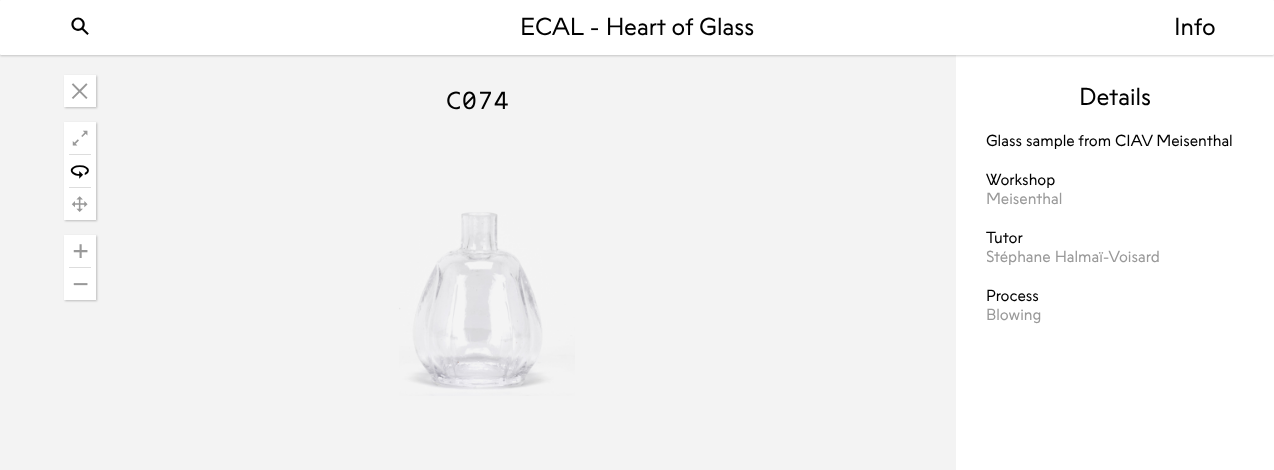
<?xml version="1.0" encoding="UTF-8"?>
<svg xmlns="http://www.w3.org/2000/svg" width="1274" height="470">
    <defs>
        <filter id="blur1" x="-50%" y="-200%" width="200%" height="500%"><feGaussianBlur stdDeviation="1"/></filter>
    </defs>
    <rect width="100%" height="100%" fill="#F3F3F3"/>
    <rect x="956" y="55" width="318" height="415" fill="#FFFFFF"/>
    <rect x="0" y="1" width="1274" height="55" rx="1" fill="#000000" fill-opacity="0.2" filter="url(#blur1)"/>
    <rect x="0" y="0" width="1274" height="55" rx="1" fill="#FFFFFF"/>
    <text x="70" y="35" font-family="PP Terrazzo" font-size="23" fill="#000000">c</text>
    <text x="520" y="35" font-family="'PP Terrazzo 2'" font-size="23" fill="#000000">ECAL - Heart of Glass</text>
    <text x="1174" y="35" font-family="'PP Terrazzo 2'" font-size="23" fill="#000000">Info</text>
    <rect x="65" y="76" width="32" height="32" fill="#BBBBBB" filter="url(#blur1)"/>
    <rect x="64" y="75" width="32" height="32" fill="#FFFFFF"/>
    <text x="70" y="99" font-family="PP Terrazzo" font-size="21" fill="#999999">g</text>
    <rect x="65" y="123" width="32" height="98" fill="#BBBBBB" filter="url(#blur1)"/>
    <rect x="64" y="122" width="32" height="98" fill="#FFFFFF"/>
    <text x="71" y="146" font-family="PP Terrazzo" font-size="21" fill="#999999">b</text>
    <rect x="69" y="154" width="22" height="1" fill="#DDDDDD"/>
    <text x="69" y="179" font-family="PP Terrazzo" font-size="21" fill="#000000">d</text>
    <rect x="69" y="187" width="22" height="1" fill="#DDDDDD"/>
    <text x="70" y="212" font-family="PP Terrazzo" font-size="21" fill="#999999">h</text>
    <rect x="65" y="236" width="32" height="65" fill="#BBBBBB" filter="url(#blur1)"/>
    <rect x="64" y="235" width="32" height="65" fill="#FFFFFF"/>
    <text x="72" y="259" font-family="PP Terrazzo" font-size="21" fill="#999999">e</text>
    <rect x="69" y="267" width="22" height="1" fill="#DDDDDD"/>
    <text x="72" y="292" font-family="PP Terrazzo" font-size="21" fill="#999999">f</text>
    <text x="446" y="109" font-family="'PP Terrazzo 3'" font-size="23" fill="#000000">C074</text>
    <image x="399" y="212" width="176" height="184" href="img_01.png"/>
    <text x="1079" y="105" font-family="'PP Terrazzo 2'" font-size="23" fill="#000000">Details</text>
    <text x="986" y="146" font-family="'PP Terrazzo 2'" font-size="15" fill="#000000">Glass sample from CIAV Meisenthal</text>
    <text x="986" y="185" font-family="'PP Terrazzo 2'" font-size="15" fill="#000000">Workshop</text>
    <text x="986" y="204" font-family="'PP Terrazzo 2'" font-size="15" fill="#999999">Meisenthal</text>
    <text x="986" y="243" font-family="'PP Terrazzo 2'" font-size="15" fill="#000000">Tutor</text>
    <text x="986" y="262" font-family="'PP Terrazzo 2'" font-size="15" fill="#999999">Stéphane Halmaï-Voisard</text>
    <text x="986" y="301" font-family="'PP Terrazzo 2'" font-size="15" fill="#000000">Process</text>
    <text x="986" y="320" font-family="'PP Terrazzo 2'" font-size="15" fill="#999999">Blowing</text>
</svg>
